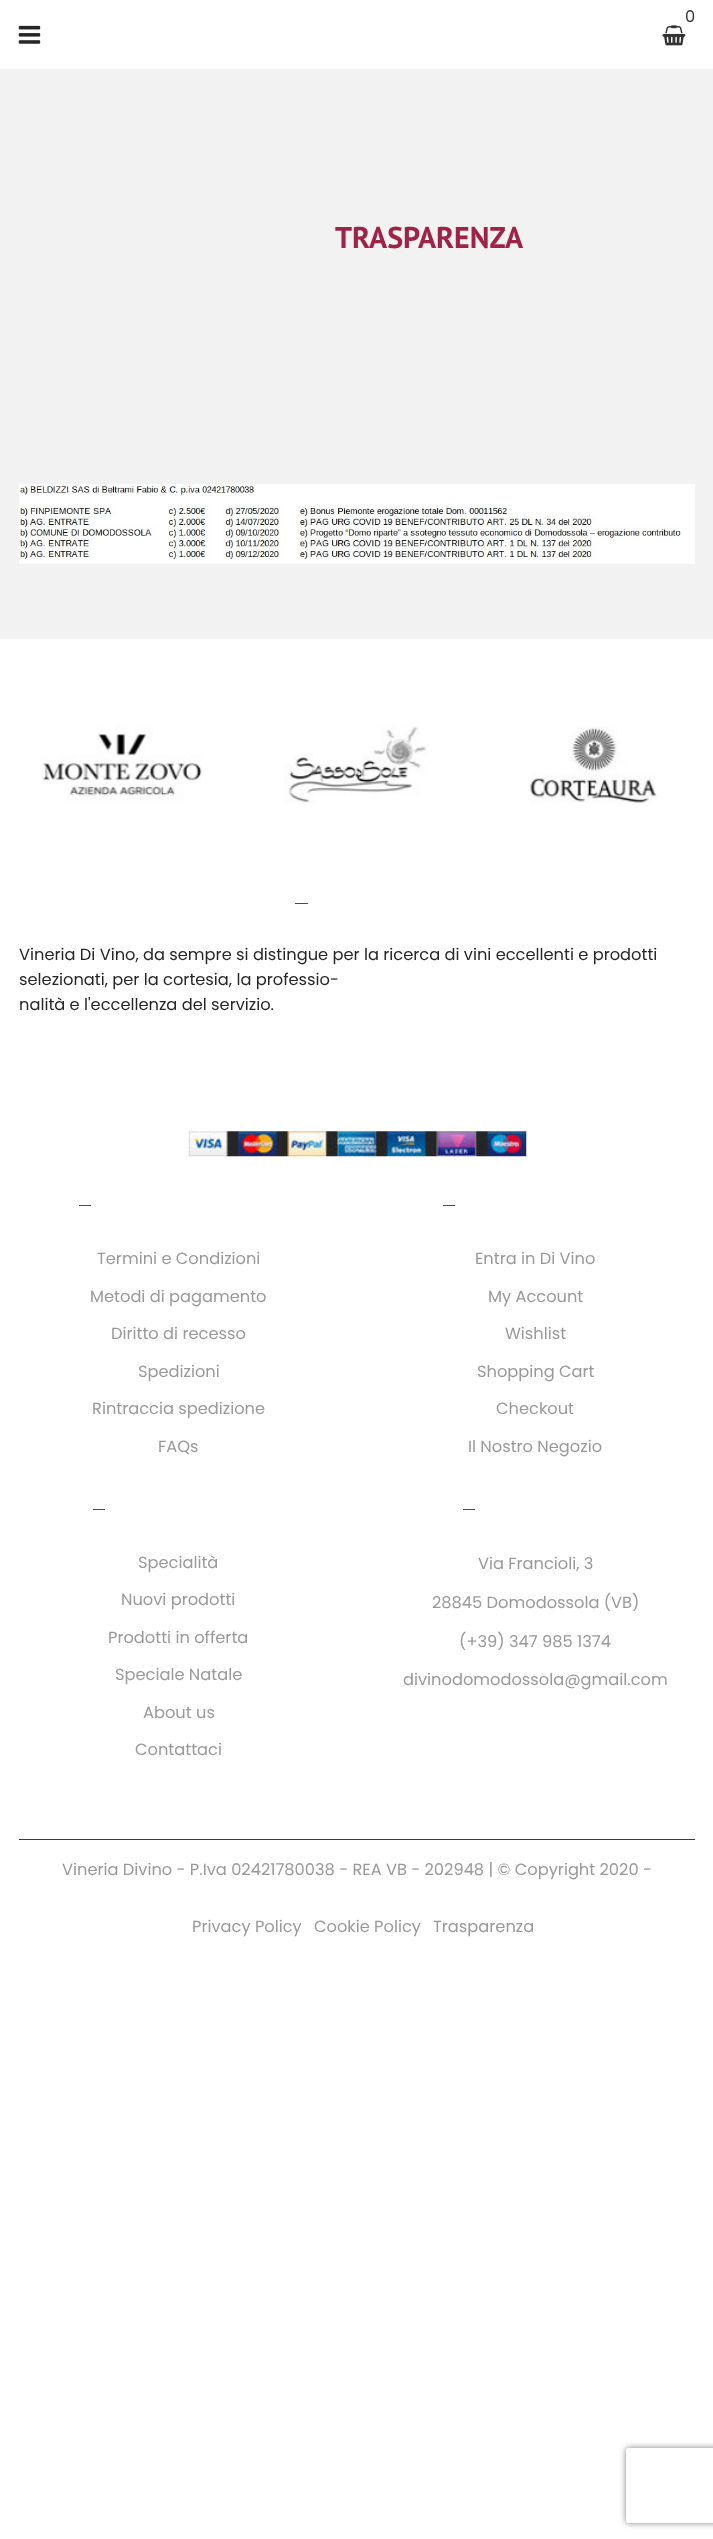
<?xml version="1.0" encoding="UTF-8"?>
<svg xmlns="http://www.w3.org/2000/svg" width="713" height="2539">
    <defs>
        <clipPath id="clip1"><path d="M 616 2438 H 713 V 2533 H 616 Z M 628.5 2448 H 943.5 C 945 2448 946 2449 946 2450.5 V 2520.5 C 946 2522 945 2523 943.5 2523 H 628.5 C 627 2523 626 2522 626 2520.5 V 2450.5 C 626 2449 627 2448 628.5 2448 Z" clip-rule="evenodd"/></clipPath>
        <filter id="blur1" x="-50%" y="-200%" width="200%" height="500%"><feGaussianBlur stdDeviation="3"/></filter>
    </defs>
    <rect width="100%" height="100%" fill="#FFFFFF"/>
    <text x="685" y="22" font-family="Poppins" font-size="16.25" fill="#333333">0</text>
    <image x="662" y="25" width="24" height="21" href="img_01.png"/>
    <image x="18" y="25" width="23" height="19" href="img_02.png"/>
    <rect x="0" y="69" width="713" height="570" fill="#F2F2F2"/>
    <text x="335" y="248" font-family="PT Sans" font-size="30" font-weight="700" fill="#9F2348">TRASPARENZA</text>
    <image x="19" y="484" width="676" height="80" href="img_03.png"/>
    <image x="41" y="726" width="161" height="75" href="img_04.png"/>
    <image x="284" y="726" width="143" height="77" href="img_05.png"/>
    <image x="530" y="726" width="128" height="78" href="img_06.png"/>
    <rect x="295" y="903" width="13" height="1" fill="#9F2348"/>
    <text font-family="Poppins" font-size="16.25" fill="#262626">
        <tspan x="19" y="960">Vineria Di Vino, da sempre si distingue per la ricerca di vini eccellenti e prodotti</tspan>
        <tspan x="19" y="985">selezionati, per la cortesia, la professio-</tspan>
        <tspan x="19" y="1010">nalità e l'eccellenza del servizio.</tspan>
    </text>
    <image x="188" y="1131" width="339" height="26" href="img_07.png"/>
    <rect x="79" y="1205" width="12" height="1" fill="#9F2348"/>
    <text x="97" y="1264" font-family="Poppins" font-size="16.25" fill="#999999">Termini e Condizioni</text>
    <text x="90" y="1302" font-family="Poppins" font-size="16.25" fill="#999999">Metodi di pagamento</text>
    <text x="111" y="1339" font-family="Poppins" font-size="16.25" fill="#999999">Diritto di recesso</text>
    <text x="138" y="1377" font-family="Poppins" font-size="16.25" fill="#999999">Spedizioni</text>
    <text x="92" y="1414" font-family="Poppins" font-size="16.25" fill="#999999">Rintraccia spedizione</text>
    <text x="158" y="1452" font-family="Poppins" font-size="16.25" fill="#999999">FAQs</text>
    <rect x="443" y="1205" width="12" height="1" fill="#9F2348"/>
    <text x="475" y="1264" font-family="Poppins" font-size="16.25" fill="#999999">Entra in Di Vino</text>
    <text x="488" y="1302" font-family="Poppins" font-size="16.25" fill="#999999">My Account</text>
    <text x="505" y="1339" font-family="Poppins" font-size="16.25" fill="#999999">Wishlist</text>
    <text x="477" y="1377" font-family="Poppins" font-size="16.25" fill="#999999">Shopping Cart</text>
    <text x="496" y="1414" font-family="Poppins" font-size="16.25" fill="#999999">Checkout</text>
    <text x="468" y="1452" font-family="Poppins" font-size="16.25" fill="#999999">Il Nostro Negozio</text>
    <rect x="93" y="1509" width="12" height="1" fill="#9F2348"/>
    <text x="138" y="1568" font-family="Poppins" font-size="16.25" fill="#999999">Specialità</text>
    <text x="121" y="1605" font-family="Poppins" font-size="16.25" fill="#999999">Nuovi prodotti</text>
    <text x="108" y="1643" font-family="Poppins" font-size="16.25" fill="#999999">Prodotti in offerta</text>
    <text x="115" y="1680" font-family="Poppins" font-size="16.25" fill="#999999">Speciale Natale</text>
    <text x="143" y="1718" font-family="Poppins" font-size="16.25" fill="#999999">About us</text>
    <text x="135" y="1755" font-family="Poppins" font-size="16.25" fill="#999999">Contattaci</text>
    <rect x="463" y="1509" width="12" height="1" fill="#9F2348"/>
    <text x="478" y="1569" font-family="Poppins" font-size="16.25" fill="#999999">Via Francioli, 3</text>
    <text x="432" y="1608" font-family="Poppins" font-size="16.25" fill="#999999">28845 Domodossola (VB)</text>
    <text x="459" y="1647" font-family="Poppins" font-size="16.25" fill="#999999">(+39) 347 985 1374</text>
    <text x="403" y="1685" font-family="Poppins" font-size="16.25" fill="#999999">divinodomodossola@gmail.com</text>
    <rect x="19" y="1839" width="676" height="1" fill="#3C3C3C"/>
    <text x="62" y="1875" font-family="Poppins" font-size="16.25" fill="#999999">Vineria Divino - P.Iva 02421780038 - REA VB - 202948 | © Copyright 2020 -</text>
    <text x="192" y="1932" font-family="Poppins" font-size="16.25" fill="#999999">Privacy Policy</text>
    <text x="314" y="1932" font-family="Poppins" font-size="16.25" fill="#999999">Cookie Policy</text>
    <text x="433" y="1932" font-family="Poppins" font-size="16.25" fill="#999999">Trasparenza</text>
    <g clip-path="url(#clip1)">
        <rect x="626" y="2448" width="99" height="75" rx="2.5" fill="#808080" filter="url(#blur1)"/>
    </g>
</svg>
